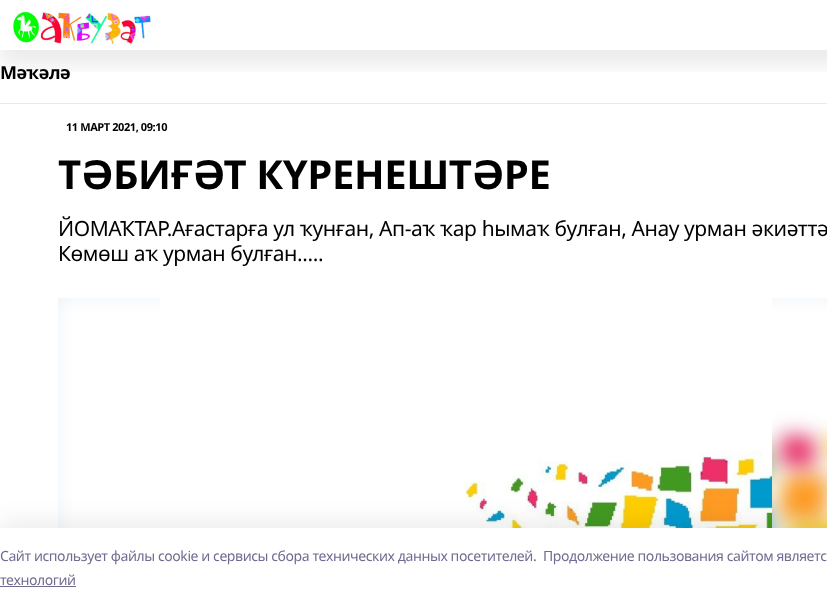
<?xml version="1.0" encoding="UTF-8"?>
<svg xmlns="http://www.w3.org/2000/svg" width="827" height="608">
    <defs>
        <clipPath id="clip1"><rect x="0" y="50" width="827" height="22"/></clipPath>
        <filter id="blur1" x="-50%" y="-200%" width="200%" height="500%"><feGaussianBlur stdDeviation="10"/></filter>
        <filter id="blur2" x="-50%" y="-200%" width="200%" height="500%"><feGaussianBlur stdDeviation="11.5"/></filter>
    </defs>
    <rect width="100%" height="100%" fill="#FFFFFF"/>
    <g clip-path="url(#clip1)">
        <rect x="0" y="15" width="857" height="50" fill="#000000" fill-opacity="0.08" filter="url(#blur1)"/>
    </g>
    <image x="13" y="12" width="138" height="33" href="img_01.png"/>
    <rect x="0" y="103" width="827" height="1" fill="#EAEAEA"/>
    <text x="0" y="79" font-family="Noto Sans" font-size="18" font-weight="700" letter-spacing="-0.42" fill="#000000">Мәҡәлә</text>
    <text x="66" y="131" font-family="Noto Sans" font-size="11" font-weight="700" letter-spacing="-0.42" fill="#000000">11 МАРТ 2021, 09:10</text>
    <text x="58" y="189" font-family="Noto Sans" font-size="40" font-weight="700" letter-spacing="-0.42" fill="#000000">ТӘБИҒӘТ КҮРЕНЕШТӘРЕ</text>
    <text font-family="Noto Sans" font-size="21" letter-spacing="-0.42" fill="#000000">
        <tspan x="58" y="236">ЙОМАҠТАР.Ағастарға ул ҡунған, Ап-аҡ ҡар һымаҡ булған, Анау урман әкиәттә</tspan>
        <tspan x="58" y="261">Көмөш аҡ урман булған.....</tspan>
    </text>
    <rect x="58" y="298" width="769" height="230" fill="#EDF2F7"/>
    <image x="58" y="298" width="769" height="230" href="img_02.png"/>
    <image x="160" y="298" width="612" height="230" href="img_03.png"/>
    <rect x="0" y="522" width="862" height="80" fill="#14142B" fill-opacity="0.08" filter="url(#blur2)"/>
    <rect x="0" y="528" width="827" height="80" fill="#FFFFFF"/>
    <text x="0" y="561" font-family="Noto Sans" font-size="14" letter-spacing="-0.42" fill="#6F6C90">Cайт использует файлы cookie и сервисы сбора технических данных посетителей.</text>
    <text x="543" y="561" font-family="Noto Sans" font-size="14" letter-spacing="-0.42" fill="#6F6C90">Продолжение пользования сайтом являетс</text>
    <text x="0" y="585" font-family="Noto Sans" font-size="14" letter-spacing="-0.42" fill="#6F6C90">технологий</text>
    <rect x="0" y="586" width="76" height="1" fill="#6F6C90"/>
</svg>
